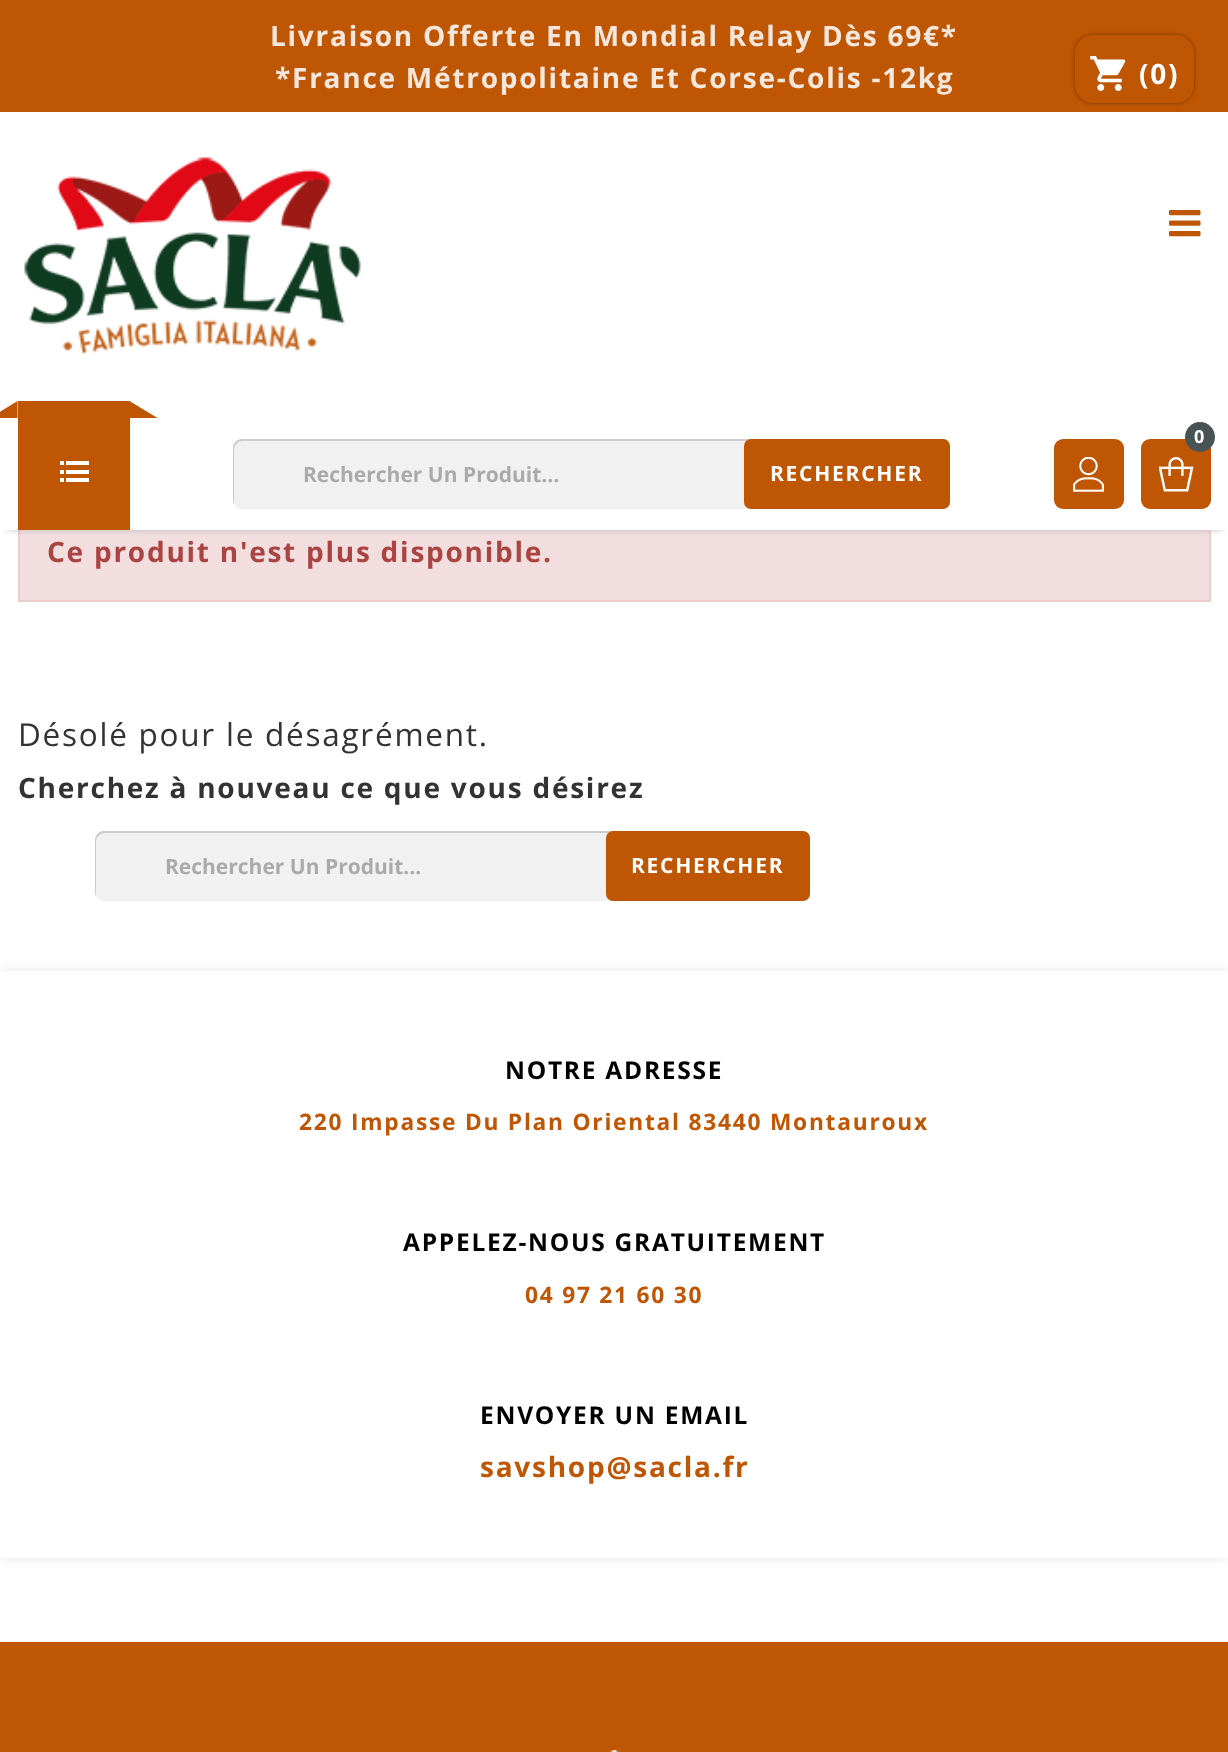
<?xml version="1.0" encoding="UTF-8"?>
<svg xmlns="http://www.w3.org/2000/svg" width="1228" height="1752">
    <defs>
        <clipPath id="clip1"><rect x="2" y="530" width="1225" height="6"/></clipPath>
        <filter id="blur1" x="-50%" y="-200%" width="200%" height="500%"><feGaussianBlur stdDeviation="3.5"/></filter>
        <filter id="blur2" x="-50%" y="-200%" width="200%" height="500%"><feGaussianBlur stdDeviation="2"/></filter>
        <filter id="blur3" x="-50%" y="-200%" width="200%" height="500%"><feGaussianBlur stdDeviation="6"/></filter>
    </defs>
    <rect width="100%" height="100%" fill="#FFFFFF"/>
    <rect x="20" y="530" width="1189" height="70" fill="#F2DEDE"/>
    <rect x="19" y="1" width="1191" height="600" fill="none" stroke="#EBCCCC" stroke-width="2"/>
    <rect x="18" y="112" width="1193" height="418" fill="#FFFFFF"/>
    <rect x="0" y="0" width="1228" height="112" fill="#BF5603"/>
    <text x="270" y="46" font-family="Open Sans" font-size="28" font-weight="700" letter-spacing="1.75" fill="#F6E7DC">Livraison Offerte En Mondial Relay Dès 69€*</text>
    <text x="275" y="88" font-family="Open Sans" font-size="28" font-weight="700" letter-spacing="1.75" fill="#F6E7DC">*France Métropolitaine Et Corse-Colis -12kg</text>
    <image x="24" y="157" width="337" height="197" href="img_01.png"/>
    <image x="1169" y="210" width="32" height="27" href="img_02.png"/>
    <g clip-path="url(#clip1)">
        <rect x="7" y="431" width="1215" height="98" fill="#B1B1B1" filter="url(#blur1)"/>
    </g>
    <path d="M 17.5 418 H -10.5 L 17.5 401 Z" fill="#BF5603"/>
    <path d="M 157.5 418 H 129.5 V 401 Z" fill="#BF5603"/>
    <rect x="18" y="401" width="112" height="129" fill="#BF5603"/>
    <rect x="66" y="478" width="23" height="4" fill="#FFFFFF"/>
    <rect x="66" y="470" width="23" height="4" fill="#FFFFFF"/>
    <rect x="66" y="461" width="23" height="4" fill="#FFFFFF"/>
    <rect x="60" y="478" width="4" height="4" fill="#FFFFFF"/>
    <rect x="60" y="470" width="4" height="4" fill="#FFFFFF"/>
    <rect x="60" y="461" width="4" height="4" fill="#FFFFFF"/>
    <rect x="1141" y="439" width="70" height="70" rx="9" fill="#BF5603"/>
    <circle cx="1200" cy="437" r="15" fill="#475354"/>
    <text x="1194" y="443" font-family="Open Sans" font-size="18" font-weight="700" letter-spacing="1.75" fill="#FFFFFF">0</text>
    <image x="1159" y="457" width="35" height="35" href="img_03.png"/>
    <rect x="233" y="439" width="717" height="70" rx="9" fill="#F1F1F1"/>
    <path d="M 243 441 H 943 C 945 441 947 442 948 443 C 947 440 944 439 941 439 H 242 C 237 439 233 443 233 448 V 500 C 233 502 234 504 234 505 V 502 V 450 C 234 445 238 441 243 441 Z" fill="#CCCCCC"/>
    <text x="303" y="482" font-family="Open Sans" font-size="21" font-weight="700" fill="#AAAAAA">Rechercher Un Produit...</text>
    <rect x="744" y="439" width="206" height="70" rx="7" fill="#BF5603"/>
    <text x="770" y="481" font-family="Open Sans" font-size="21" font-weight="700" letter-spacing="1.75" fill="#FFFFFF">RECHERCHER</text>
    <rect x="1054" y="439" width="70" height="70" rx="9" fill="#BF5603"/>
    <image x="1073" y="457" width="31" height="35" href="img_04.png"/>
    <rect x="1075" y="35" width="119" height="68" rx="18" fill="#000000" fill-opacity="0.4" filter="url(#blur2)"/>
    <rect x="1075" y="35" width="119" height="68" rx="18" fill="#BF5603"/>
    <image x="1090" y="56" width="36" height="35" href="img_05.png"/>
    <text x="1139" y="84" font-family="Open Sans" font-size="28" font-weight="700" letter-spacing="1.75" fill="#FFFFFF">(0)</text>
    <text x="47" y="562" font-family="Open Sans" font-size="28" font-weight="700" letter-spacing="1.75" fill="#A94442">Ce produit n'est plus disponible.</text>
    <text x="18" y="746" font-family="Open Sans" font-size="31.5" letter-spacing="1.75" fill="#333333">Désolé pour le désagrément.</text>
    <text x="18" y="798" font-family="Open Sans" font-size="28" font-weight="700" letter-spacing="1.75" fill="#333333">Cherchez à nouveau ce que vous désirez</text>
    <rect x="95" y="831" width="715" height="70" rx="9" fill="#F1F1F1"/>
    <path d="M 105 833 H 803 C 805 833 807 834 808 835 C 807 832 804 831 801 831 H 104 C 99 831 95 835 95 840 V 892 C 95 894 96 896 96 897 V 894 V 842 C 96 837 100 833 105 833 Z" fill="#CCCCCC"/>
    <text x="165" y="874" font-family="Open Sans" font-size="21" font-weight="700" fill="#AAAAAA">Rechercher Un Produit...</text>
    <rect x="606" y="831" width="204" height="70" rx="7" fill="#BF5603"/>
    <text x="631" y="873" font-family="Open Sans" font-size="21" font-weight="700" letter-spacing="1.75" fill="#FFFFFF">RECHERCHER</text>
    <rect x="0" y="971" width="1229" height="587" fill="#000000" fill-opacity="0.1" filter="url(#blur3)"/>
    <rect x="0" y="971" width="1228" height="587" fill="#FFFFFF"/>
    <text x="505" y="1079" font-family="Open Sans" font-size="24.5" font-weight="700" letter-spacing="1.75" fill="#000000">NOTRE ADRESSE</text>
    <text x="299" y="1130" font-family="Open Sans" font-size="22.75" font-weight="700" letter-spacing="1.75" fill="#BF5603">220 Impasse Du Plan Oriental 83440 Montauroux</text>
    <text x="403" y="1251" font-family="Open Sans" font-size="24.5" font-weight="700" letter-spacing="1.75" fill="#000000">APPELEZ-NOUS GRATUITEMENT</text>
    <text x="525" y="1303" font-family="Open Sans" font-size="22.75" font-weight="700" letter-spacing="1.75" fill="#BF5603">04 97 21 60 30</text>
    <text x="480" y="1424" font-family="Open Sans" font-size="24.5" font-weight="700" letter-spacing="1.75" fill="#000000">ENVOYER UN EMAIL</text>
    <text x="480" y="1477" font-family="Open Sans" font-size="28" font-weight="700" letter-spacing="1.75" fill="#BF5603">savshop@sacla.fr</text>
    <rect x="0" y="1642" width="1228" height="110" fill="#BF5603"/>
    <image x="608" y="1750" width="12" height="2" href="img_06.png"/>
</svg>
